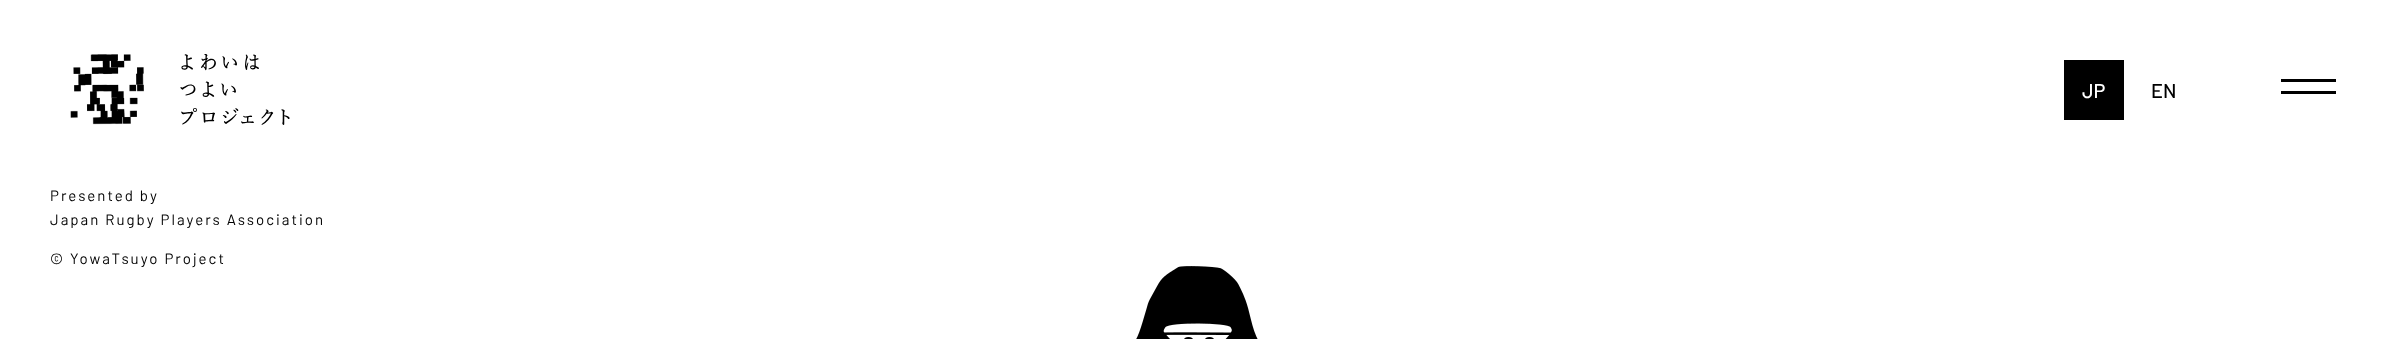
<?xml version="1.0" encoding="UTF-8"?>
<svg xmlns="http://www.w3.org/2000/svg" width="2393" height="339">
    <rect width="100%" height="100%" fill="#FFFFFF"/>
    <image x="70" y="54" width="74" height="71" href="img_01.png"/>
    <image x="180" y="54" width="110" height="71" href="img_02.png"/>
    <rect x="2064" y="60" width="60" height="60" fill="#000000"/>
    <text x="2082" y="98" font-family="Barlow" font-size="20" font-weight="500" fill="#FFFFFF">JP</text>
    <text x="2151" y="98" font-family="Barlow" font-size="20" font-weight="500" fill="#000000">EN</text>
    <rect x="2281" y="79" width="55" height="3" fill="#000000"/>
    <rect x="2281" y="91" width="55" height="3" fill="#000000"/>
    <text font-family="Barlow" font-size="15" letter-spacing="2" fill="#000000">
        <tspan x="50" y="201">Presented by</tspan>
        <tspan x="50" y="225">Japan Rugby Players Association</tspan>
    </text>
    <text x="50" y="264" font-family="Barlow" font-size="15" letter-spacing="2" fill="#000000">© YowaTsuyo Project</text>
    <image x="1136" y="266" width="122" height="73" href="img_03.png"/>
</svg>
